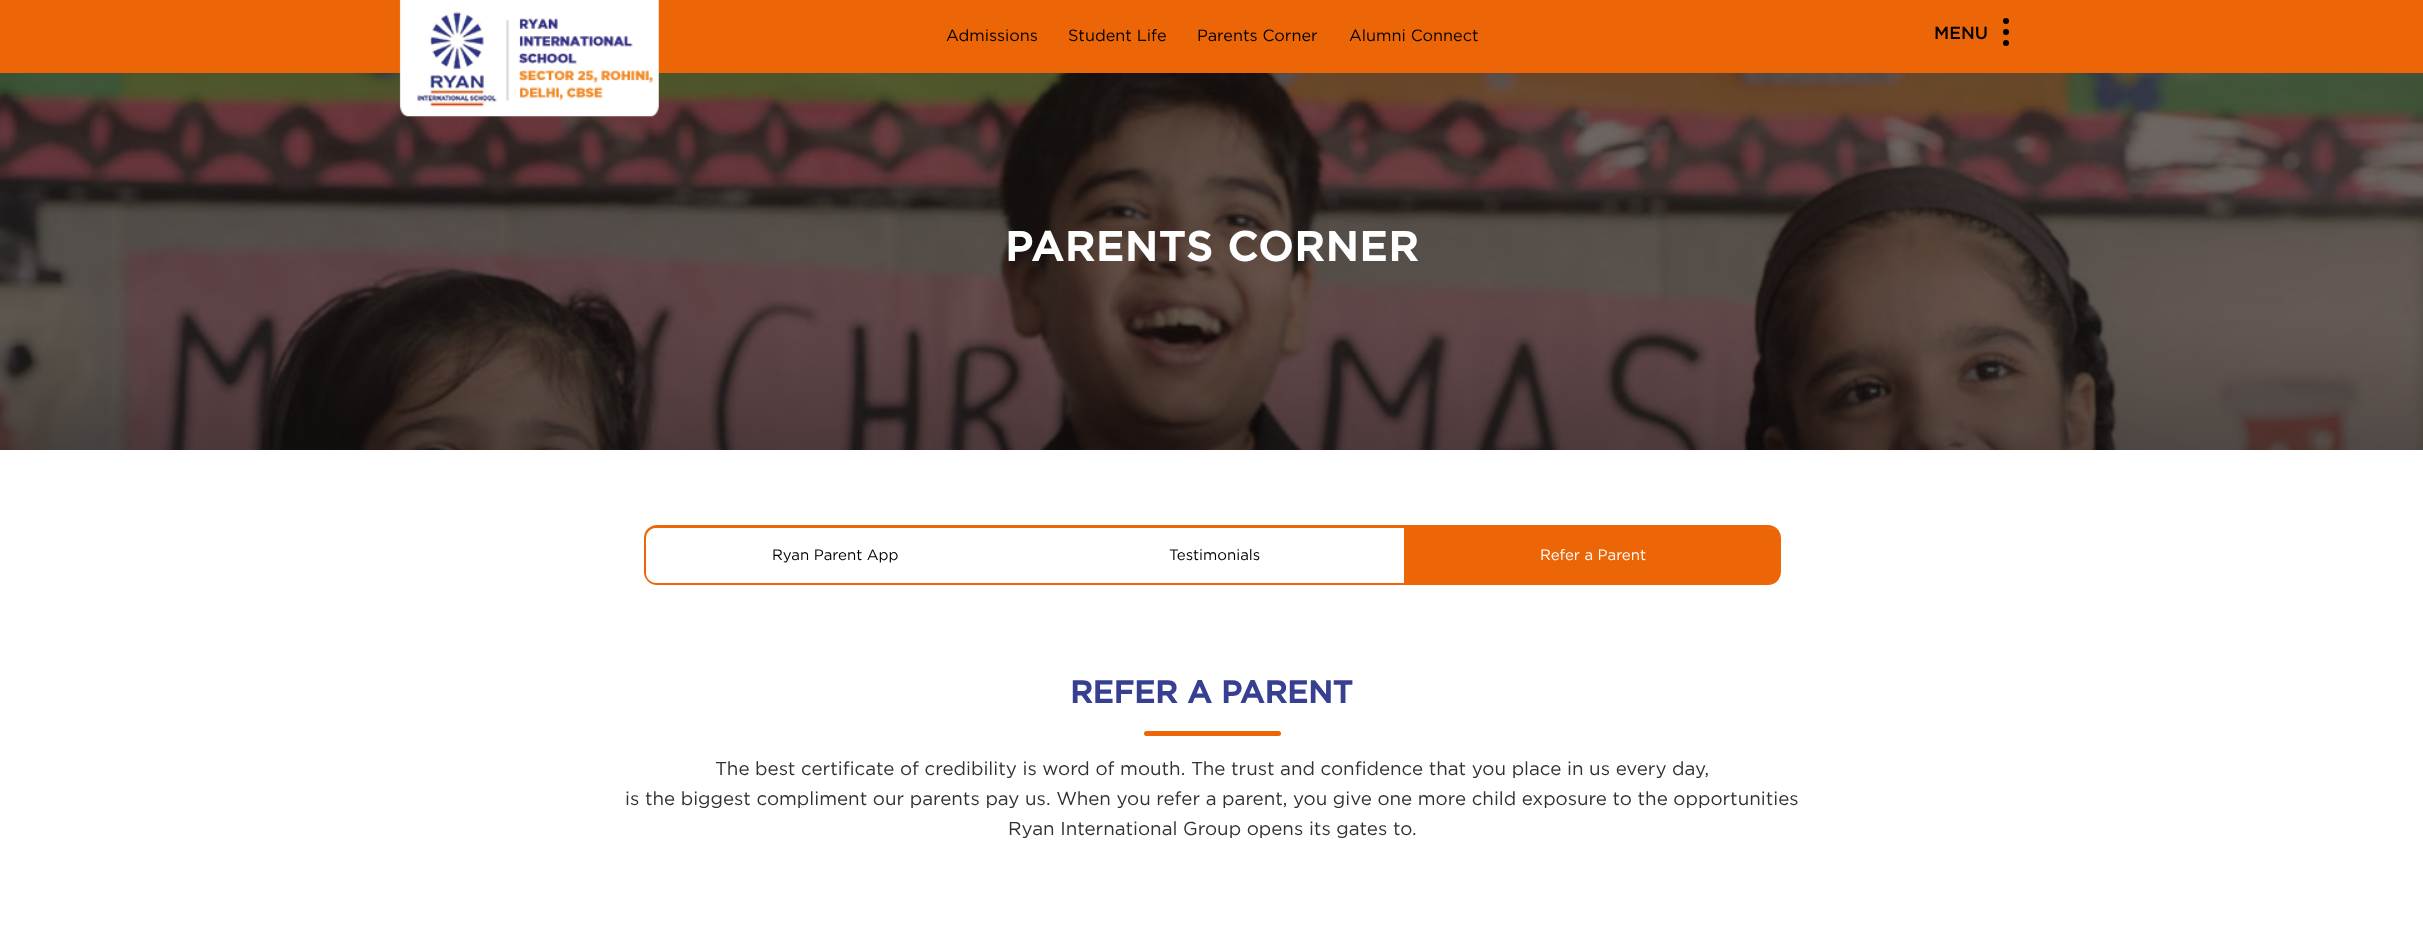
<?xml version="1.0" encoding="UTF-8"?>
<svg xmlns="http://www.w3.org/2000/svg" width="2423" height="942">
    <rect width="100%" height="100%" fill="#FFFFFF"/>
    <rect x="0" y="0" width="2423" height="73" fill="#EC6607"/>
    <image x="0" y="73" width="2423" height="377" href="img_02.png"/>
    <image x="399" y="0" width="260" height="117" href="img_01.png"/>
    <text x="946" y="41" font-family="Gotham" font-size="16.25" fill="#000000">Admissions</text>
    <text x="1068" y="41" font-family="Gotham" font-size="16.25" fill="#000000">Student Life</text>
    <text x="1197" y="41" font-family="Gotham" font-size="16.25" fill="#000000">Parents Corner</text>
    <text x="1349" y="41" font-family="Gotham" font-size="16.25" fill="#000000">Alumni Connect</text>
    <text x="1934" y="39" font-family="Gotham" font-size="17.5" font-weight="500" fill="#000000">MENU</text>
    <circle cx="2006" cy="21" r="3" fill="#000000"/>
    <circle cx="2006" cy="32" r="3" fill="#000000"/>
    <circle cx="2006" cy="43" r="3" fill="#000000"/>
    <text x="1005" y="261" font-family="Gotham" font-size="41.25" font-weight="700" letter-spacing="1.25" fill="#FFFFFF">PARENTS CORNER</text>
    <rect x="645.5" y="526.5" width="1134" height="57" rx="11.5" fill="none" stroke="#EC6607" stroke-width="3"/>
    <path d="M 656 528 H 1025 V 583 H 656 C 650.5 583 646 578.5 646 573 V 538 C 646 532.5 650.5 528 656 528 Z" fill="#FFFFFF"/>
    <text x="772" y="560" font-family="Gotham" font-size="15" fill="#000000">Ryan Parent App</text>
    <rect x="1025" y="582" width="379" height="1" fill="#FFFFFF"/>
    <text x="1169" y="560" font-family="Gotham" font-size="15" fill="#000000">Testimonials</text>
    <path d="M 1404 528 H 1769 C 1774.5 528 1779 532.5 1779 538 V 573 C 1779 578.5 1774.5 583 1769 583 H 1404 Z" fill="#EC6607"/>
    <text x="1540" y="560" font-family="Gotham" font-size="15" fill="#FFFFFF">Refer a Parent</text>
    <text x="1070" y="703" font-family="Gotham" font-size="31.25" font-weight="700" fill="#363F90">REFER A PARENT</text>
    <rect x="1144" y="731" width="137" height="5" rx="2.5" fill="#EC6607"/>
    <text x="715" y="775" font-family="Gotham" font-size="18.75" fill="#33302F">The best certificate of credibility is word of mouth. The trust and confidence that you place in us every day,</text>
    <text x="625" y="805" font-family="Gotham" font-size="18.75" fill="#33302F">is the biggest compliment our parents pay us. When you refer a parent, you give one more child exposure to the opportunities</text>
    <text x="1008" y="835" font-family="Gotham" font-size="18.75" fill="#33302F">Ryan International Group opens its gates to.</text>
</svg>
